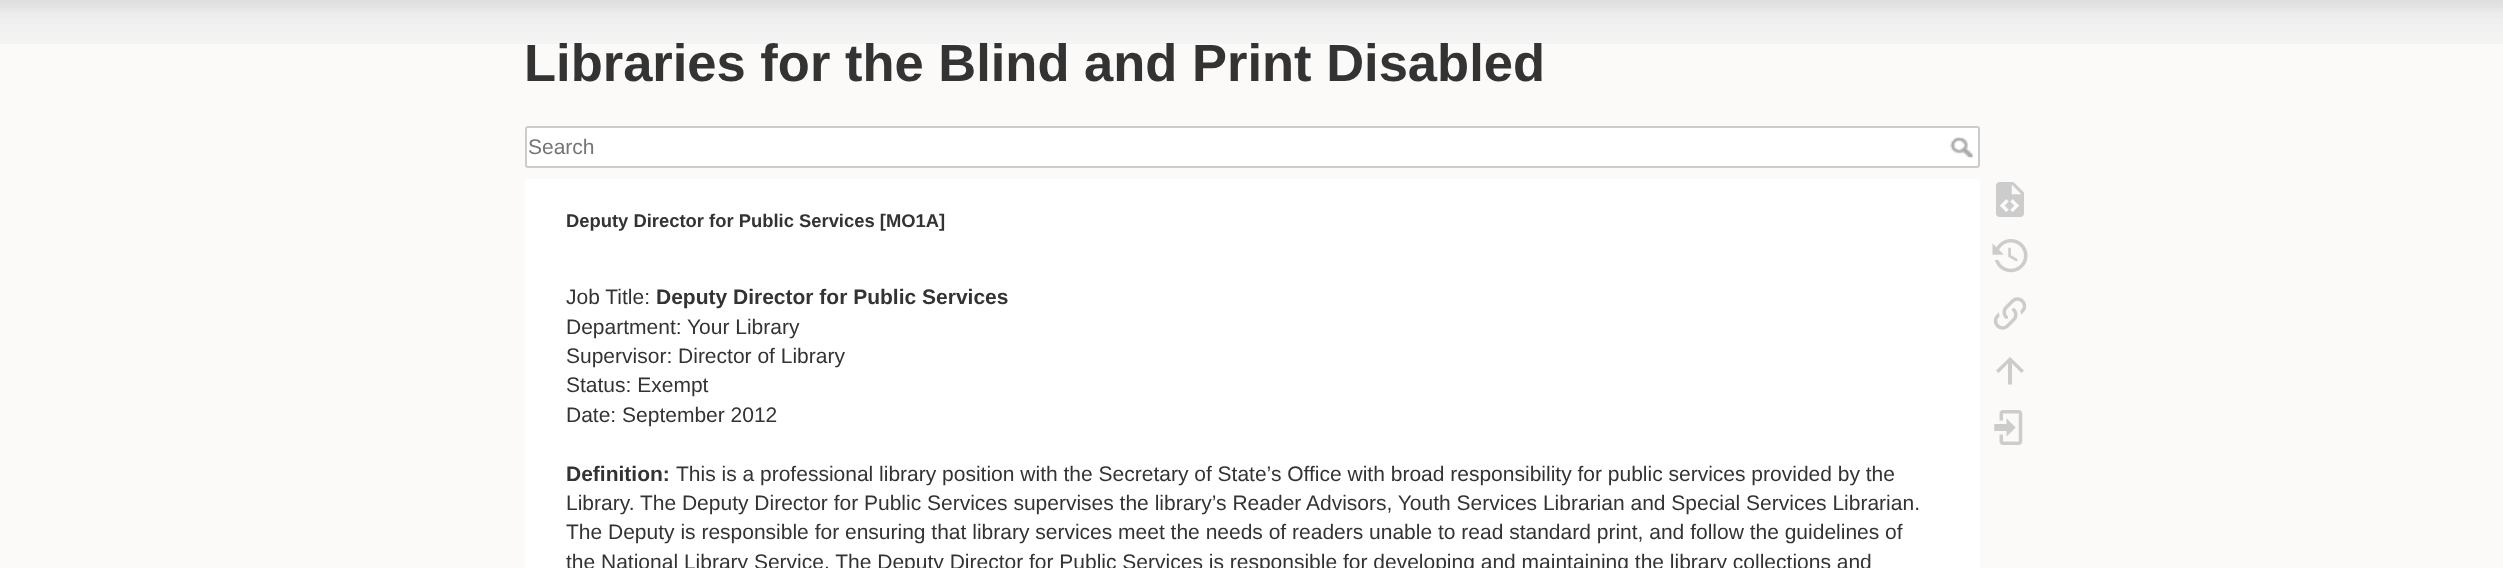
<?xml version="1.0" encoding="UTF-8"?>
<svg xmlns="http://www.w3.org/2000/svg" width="2503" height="568">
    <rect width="100%" height="100%" fill="#FBFAF9"/>
    <image x="0" y="0" width="2503" height="44" href="img_01.png"/>
    <text x="524" y="81" font-family="Liberation Sans" font-size="52.5" font-weight="700" fill="#333333">Libraries for the Blind and Print Disabled</text>
    <rect x="526" y="127" width="1453" height="40" rx="2" fill="#FFFFFF" stroke="#CCCCCC" stroke-width="2"/>
    <text x="528" y="154" font-family="Liberation Sans" font-size="21" fill="#757575">Search</text>
    <image x="1950" y="137" width="23" height="21" href="img_02.png"/>
    <rect x="525" y="179" width="1455" height="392" rx="3" fill="#FFFFFF"/>
    <text x="566" y="227" font-family="Liberation Sans" font-size="18.4" font-weight="700" fill="#333333">Deputy Director for Public Services [MO1A]</text>
    <text x="566" y="304" font-family="Liberation Sans" font-size="21" fill="#333333">Job Title:</text>
    <text x="656" y="304" font-family="Liberation Sans" font-size="21" font-weight="700" fill="#333333">Deputy Director for Public Services</text>
    <text font-family="Liberation Sans" font-size="21" fill="#333333">
        <tspan x="566" y="334">Department: Your Library</tspan>
        <tspan x="566" y="363">Supervisor: Director of Library</tspan>
        <tspan x="566" y="392">Status: Exempt</tspan>
        <tspan x="566" y="422">Date: September 2012</tspan>
    </text>
    <text x="566" y="481" font-family="Liberation Sans" font-size="21" font-weight="700" fill="#333333">Definition:</text>
    <text x="676" y="481" font-family="Liberation Sans" font-size="21" fill="#333333">This is a professional library position with the Secretary of State’s Office with broad responsibility for public services provided by the</text>
    <text font-family="Liberation Sans" font-size="21" fill="#333333">
        <tspan x="566" y="510">Library. The Deputy Director for Public Services supervises the library’s Reader Advisors, Youth Services Librarian and Special Services Librarian.</tspan>
        <tspan x="566" y="539">The Deputy is responsible for ensuring that library services meet the needs of readers unable to read standard print, and follow the guidelines of</tspan>
        <tspan x="566" y="569">the National Library Service. The Deputy Director for Public Services is responsible for developing and maintaining the library collections and</tspan>
    </text>
    <image x="1996" y="182" width="28" height="35" href="img_03.png"/>
    <image x="1992" y="239" width="36" height="34" href="img_04.png"/>
    <image x="1993" y="297" width="34" height="33" href="img_05.png"/>
    <path d="M 2012 384.5 H 2008 V 363.5 L 1998.5 373 L 1996 370.5 L 2010 357 L 2024 370.5 L 2021.5 373 L 2012 363.5 Z" fill="#CCCCCC"/>
    <image x="1994" y="410" width="29" height="35" href="img_06.png"/>
</svg>
